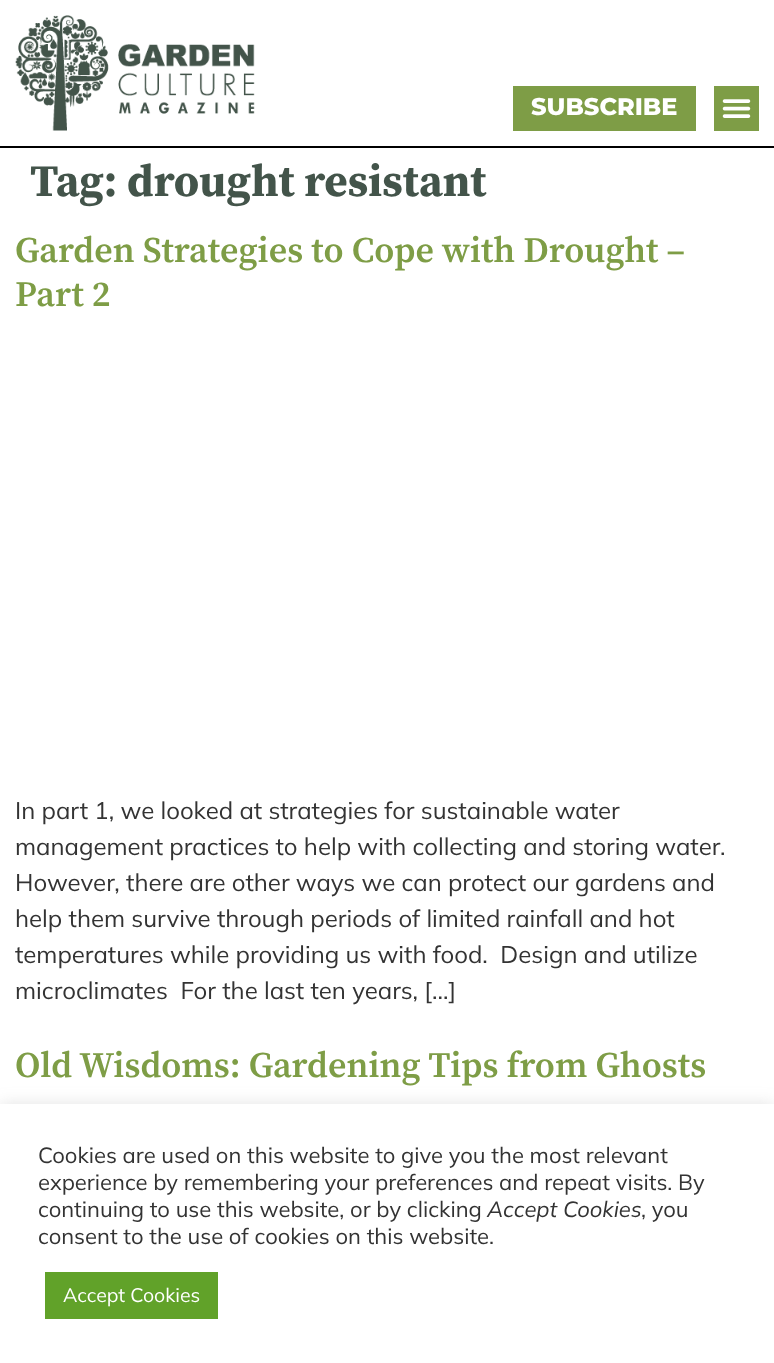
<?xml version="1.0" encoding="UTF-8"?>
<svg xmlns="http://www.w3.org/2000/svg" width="774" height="1363">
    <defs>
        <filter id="blur1" x="-50%" y="-200%" width="200%" height="500%"><feGaussianBlur stdDeviation="7.5"/></filter>
    </defs>
    <rect width="100%" height="100%" fill="#FFFFFF"/>
    <rect x="0" y="146" width="774" height="2" fill="#000000"/>
    <image x="15" y="15" width="240" height="116" href="img_01.png"/>
    <rect x="513" y="86" width="183" height="45" fill="#7E9D46"/>
    <text x="531" y="115" font-family="Montserrat" font-size="24" font-weight="800" fill="#FFFFFF">SUBSCRIBE</text>
    <rect x="714" y="86" width="45" height="45" fill="#7E9D46"/>
    <image x="722" y="99" width="29" height="19" href="img_02.png"/>
    <text x="30" y="196" font-family="Source Serif Pro" font-size="45" font-weight="700" fill="#43544A">Tag: drought resistant</text>
    <text font-family="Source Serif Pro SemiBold" font-size="36" font-weight="600" fill="#7E9D46">
        <tspan x="15" y="262">Garden Strategies to Cope with Drought –</tspan>
        <tspan x="15" y="306">Part 2</tspan>
    </text>
    <text font-family="Mulish" font-size="24" fill="#333333" xml:space="preserve"><tspan x="15" y="819">In part 1, we looked at strategies for sustainable water</tspan><tspan x="15" y="855">management practices to help with collecting and storing water.</tspan><tspan x="15" y="891">However, there are other ways we can protect our gardens and</tspan><tspan x="15" y="927">help them survive through periods of limited rainfall and hot</tspan><tspan x="15" y="963">temperatures while providing us with food.  Design and utilize</tspan><tspan x="15" y="999">microclimates  For the last ten years, […]</tspan></text>
    <text x="15" y="1077" font-family="Source Serif Pro SemiBold" font-size="36" font-weight="600" fill="#7E9D46">Old Wisdoms: Gardening Tips from Ghosts</text>
    <rect x="0" y="1103" width="774" height="259" fill="#ACABAB" fill-opacity="0.3" filter="url(#blur1)"/>
    <rect x="0" y="1104" width="774" height="259" fill="#FFFFFF"/>
    <text font-family="Mulish" font-size="22" fill="#333333">
        <tspan x="38" y="1163">Cookies are used on this website to give you the most relevant</tspan>
        <tspan x="38" y="1190">experience by remembering your preferences and repeat visits. By</tspan>
        <tspan x="38" y="1217">continuing to use this website, or by clicking</tspan>
    </text>
    <text x="487" y="1217" font-family="Mulish" font-size="22" font-style="italic" fill="#333333">Accept Cookies</text>
    <text x="641" y="1217" font-family="Mulish" font-size="22" fill="#333333">, you</text>
    <text x="38" y="1244" font-family="Mulish" font-size="22" fill="#333333">consent to the use of cookies on this website.</text>
    <rect x="45" y="1272" width="173" height="47" fill="#61A229"/>
    <text x="63" y="1302" font-family="Mulish" font-size="19.5" fill="#FFFFFF">Accept Cookies</text>
</svg>
